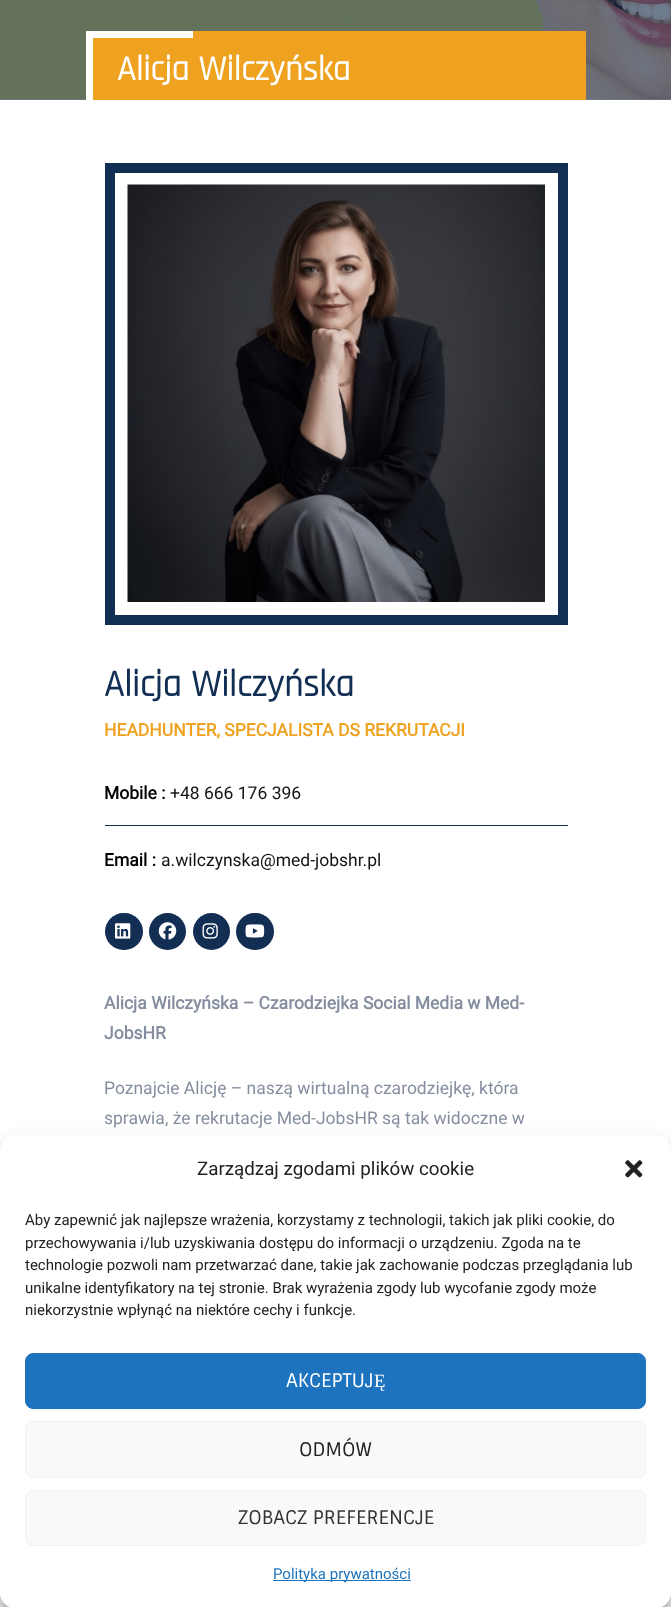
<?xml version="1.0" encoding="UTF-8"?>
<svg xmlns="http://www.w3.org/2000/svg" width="671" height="1607">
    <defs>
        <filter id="blur1" x="-50%" y="-200%" width="200%" height="500%"><feGaussianBlur stdDeviation="4"/></filter>
        <filter id="blur2" x="-50%" y="-200%" width="200%" height="500%"><feGaussianBlur stdDeviation="12.5"/></filter>
    </defs>
    <rect width="100%" height="100%" fill="#FFFFFF"/>
    <rect x="0" y="99" width="671" height="1" fill="#718298"/>
    <image x="0" y="0" width="671" height="100" href="img_01.png"/>
    <rect x="93" y="31" width="493" height="69" fill="#EFA220"/>
    <rect x="86" y="31" width="7" height="69" fill="#FFFFFF"/>
    <rect x="93" y="31" width="100" height="7" fill="#FFFFFF"/>
    <text x="117" y="80" font-family="Rajdhani" font-size="35" font-weight="700" fill="#FFFFFF">Alicja Wilczyńska</text>
    <rect x="110" y="168" width="453" height="452" fill="none" stroke="#122E53" stroke-width="10"/>
    <image x="127" y="184" width="418" height="418" href="img_02.png"/>
    <text x="104" y="696" font-family="Rajdhani" font-size="37.5" font-weight="700" fill="#122E53">Alicja Wilczyńska</text>
    <text x="104" y="736" font-family="Roboto" font-size="17.5" font-weight="700" fill="#EFA220">HEADHUNTER, SPECJALISTA DS REKRUTACJI</text>
    <text x="104" y="799" font-family="Roboto" font-size="17.5" font-weight="700" fill="#000000">Mobile :</text>
    <text x="170" y="799" font-family="Roboto" font-size="17.5" fill="#131313">+48 666 176 396</text>
    <rect x="105" y="825" width="463" height="1" fill="#122E53"/>
    <text x="104" y="866" font-family="Roboto" font-size="17.5" font-weight="700" fill="#000000">Email :</text>
    <text x="161" y="866" font-family="Roboto" font-size="17.5" fill="#131313">a.wilczynska@med-jobshr.pl</text>
    <rect x="105" y="913" width="38" height="37" rx="18.5" fill="#122E53"/>
    <image x="115" y="923" width="16" height="16" href="img_03.png"/>
    <circle cx="167.5" cy="931.5" r="18.5" fill="#122E53"/>
    <image x="158" y="922" width="19" height="18" href="img_04.png"/>
    <circle cx="211.5" cy="931.5" r="18.5" fill="#122E53"/>
    <image x="202" y="923" width="16" height="16" href="img_05.png"/>
    <rect x="236" y="913" width="38" height="37" rx="18.5" fill="#122E53"/>
    <image x="245" y="924" width="20" height="14" href="img_06.png"/>
    <text font-family="Roboto" font-size="17.5" font-weight="700" fill="#848E9F">
        <tspan x="104" y="1009">Alicja Wilczyńska – Czarodziejka Social Media w Med-</tspan>
        <tspan x="104" y="1039">JobsHR</tspan>
    </text>
    <text font-family="Roboto" font-size="17.5" fill="#848E9F">
        <tspan x="104" y="1094">Poznajcie Alicję – naszą wirtualną czarodziejkę, która</tspan>
        <tspan x="104" y="1124">sprawia, że rekrutacje Med-JobsHR są tak widoczne w</tspan>
    </text>
    <rect x="0" y="1143" width="671" height="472" rx="15" fill="#000000" fill-opacity="0.23" filter="url(#blur1)"/>
    <rect x="0" y="1148" width="671" height="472" rx="15" fill="#000000" fill-opacity="0.19" filter="url(#blur2)"/>
    <rect x="0" y="1135" width="671" height="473" rx="15" fill="#FFFFFF"/>
    <text x="197" y="1175" font-family="Roboto" font-size="18.75" fill="#222222">Zarządzaj zgodami plików cookie</text>
    <image x="625" y="1160" width="18" height="18" href="img_07.png"/>
    <text font-family="Roboto" font-size="15" fill="#222222">
        <tspan x="25" y="1225">Aby zapewnić jak najlepsze wrażenia, korzystamy z technologii, takich jak pliki cookie, do</tspan>
        <tspan x="25" y="1248">przechowywania i/lub uzyskiwania dostępu do informacji o urządzeniu. Zgoda na te</tspan>
        <tspan x="25" y="1270">technologie pozwoli nam przetwarzać dane, takie jak zachowanie podczas przeglądania lub</tspan>
        <tspan x="25" y="1293">unikalne identyfikatory na tej stronie. Brak wyrażenia zgody lub wycofanie zgody może</tspan>
        <tspan x="25" y="1315">niekorzystnie wpłynąć na niektóre cechy i funkcje.</tspan>
    </text>
    <rect x="25.5" y="1353.5" width="620" height="55" rx="7.5" fill="#1E73BE" stroke="#1E73BE"/>
    <text x="286" y="1387" font-family="Sintony" font-size="18.75" fill="#FFFFFF">AKCEPTUJ</text>
    <text x="374" y="1387" font-family="Liberation Serif" font-size="18.75" fill="#FFFFFF">Ę</text>
    <rect x="25.5" y="1421.5" width="620" height="56" rx="7.5" fill="#F9F9F9" stroke="#F2F2F2"/>
    <text x="299" y="1456" font-family="Sintony" font-size="18.75" fill="#222222">ODMÓW</text>
    <rect x="25.5" y="1490.5" width="620" height="55" rx="7.5" fill="#F9F9F9" stroke="#F2F2F2"/>
    <text x="238" y="1524" font-family="Sintony" font-size="18.75" fill="#333333">ZOBACZ PREFERENCJE</text>
    <rect x="273" y="1580" width="138" height="1" fill="#1E73BE"/>
    <text x="273" y="1579" font-family="Roboto" font-size="15" fill="#1E73BE">Polityka prywatności</text>
</svg>
